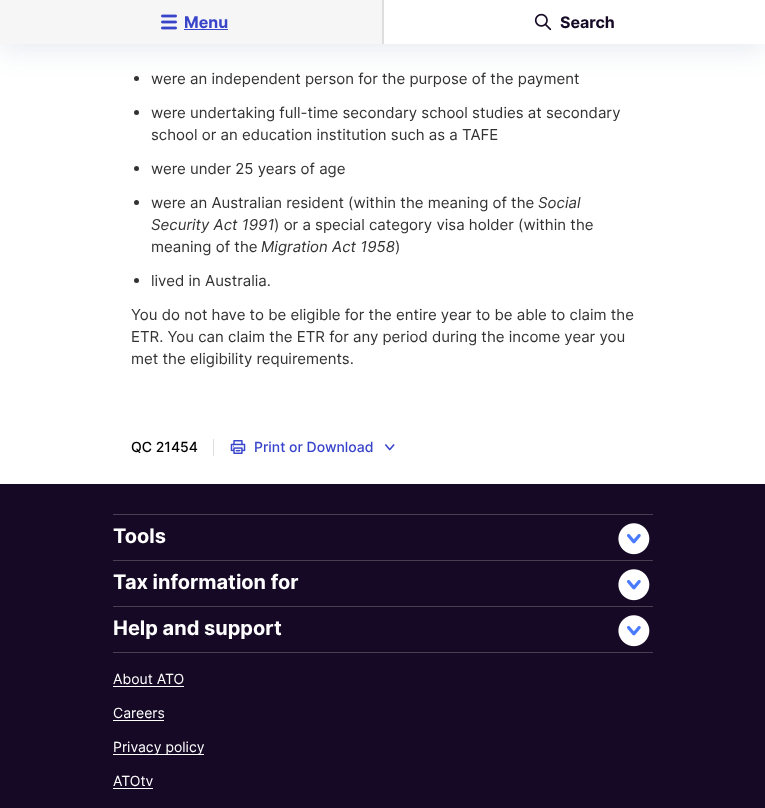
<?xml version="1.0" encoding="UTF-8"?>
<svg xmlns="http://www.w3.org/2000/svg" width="765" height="808">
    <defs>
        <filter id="blur1" x="-50%" y="-200%" width="200%" height="500%"><feGaussianBlur stdDeviation="12"/></filter>
    </defs>
    <rect width="100%" height="100%" fill="#FFFFFF"/>
    <circle cx="136.5" cy="78.5" r="2.5" fill="#333333"/>
    <rect x="0" y="-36" width="765" height="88" fill="#7090B0" fill-opacity="0.15" filter="url(#blur1)"/>
    <rect x="384" y="0" width="381" height="44" fill="#FFFFFF"/>
    <rect x="0" y="0" width="382" height="44" fill="#F6F6F6"/>
    <image x="161" y="14" width="16" height="16" href="img_01.png"/>
    <text x="184" y="28" font-family="Inter" font-size="16" font-weight="700" fill="#3844CA">Menu</text>
    <rect x="184" y="29" width="44" height="1" fill="#3844CA"/>
    <rect x="382" y="0" width="2" height="44" fill="#DEDEDE"/>
    <image x="534" y="13" width="18" height="18" href="img_02.png"/>
    <text x="560" y="28" font-family="Inter" font-size="16" font-weight="700" fill="#150925">Search</text>
    <text x="151" y="84" font-family="Inter" font-size="15" fill="#333333">were an independent person for the purpose of the payment</text>
    <circle cx="136.5" cy="112.5" r="2.5" fill="#333333"/>
    <text font-family="Inter" font-size="15" fill="#333333">
        <tspan x="151" y="118">were undertaking full-time secondary school studies at secondary</tspan>
        <tspan x="151" y="140">school or an education institution such as a TAFE</tspan>
    </text>
    <circle cx="136.5" cy="168.5" r="2.5" fill="#333333"/>
    <text x="151" y="174" font-family="Inter" font-size="15" fill="#333333">were under 25 years of age</text>
    <circle cx="136.5" cy="202.5" r="2.5" fill="#333333"/>
    <text x="151" y="208" font-family="Inter" font-size="15" fill="#333333">were an Australian resident (within the meaning of the</text>
    <text x="538" y="208" font-family="Inter" font-size="15" font-style="italic" fill="#333333">Social</text>
    <text x="151" y="230" font-family="Inter" font-size="15" font-style="italic" fill="#333333">Security Act 1991</text>
    <text x="274" y="230" font-family="Inter" font-size="15" fill="#333333">) or a special category visa holder (within the</text>
    <text x="151" y="252" font-family="Inter" font-size="15" fill="#333333">meaning of the</text>
    <text x="261" y="252" font-family="Inter" font-size="15" font-style="italic" fill="#333333">Migration Act 1958</text>
    <text x="395" y="252" font-family="Inter" font-size="15" fill="#333333">)</text>
    <circle cx="136.5" cy="280.5" r="2.5" fill="#333333"/>
    <text x="151" y="286" font-family="Inter" font-size="15" fill="#333333">lived in Australia.</text>
    <text font-family="Inter" font-size="15" fill="#333333">
        <tspan x="131" y="320">You do not have to be eligible for the entire year to be able to claim the</tspan>
        <tspan x="131" y="342">ETR. You can claim the ETR for any period during the income year you</tspan>
        <tspan x="131" y="364">met the eligibility requirements.</tspan>
    </text>
    <text x="131" y="452" font-family="Inter" font-size="14" font-weight="500" fill="#000000">QC 21454</text>
    <rect x="213" y="439" width="1" height="17" fill="#DEDEDE"/>
    <image x="230" y="440" width="16" height="14" href="img_03.png"/>
    <text x="254" y="452" font-family="Inter" font-size="14" font-weight="500" fill="#3844CA">Print or Download</text>
    <image x="385" y="444" width="10" height="7" href="img_04.png"/>
    <rect x="0" y="484" width="765" height="324" fill="#150925"/>
    <rect x="113" y="514" width="540" height="1" fill="#483F53"/>
    <text x="113" y="543" font-family="Inter" font-size="20" font-weight="700" fill="#FFFFFF">Tools</text>
    <circle cx="632.5" cy="537.5" r="12.5" fill="#4A7BFF"/>
    <image x="618" y="523" width="32" height="32" href="img_05.png"/>
    <rect x="113" y="560" width="540" height="1" fill="#483F53"/>
    <text x="113" y="589" font-family="Inter" font-size="20" font-weight="700" fill="#FFFFFF">Tax information for</text>
    <circle cx="632.5" cy="583.5" r="12.5" fill="#4A7BFF"/>
    <image x="618" y="569" width="32" height="32" href="img_05.png"/>
    <rect x="113" y="606" width="540" height="1" fill="#483F53"/>
    <text x="113" y="635" font-family="Inter" font-size="20" font-weight="700" fill="#FFFFFF">Help and support</text>
    <circle cx="632.5" cy="629.5" r="12.5" fill="#4A7BFF"/>
    <image x="618" y="615" width="32" height="32" href="img_05.png"/>
    <rect x="113" y="652" width="540" height="1" fill="#483F53"/>
    <text x="113" y="684" font-family="Inter" font-size="14" fill="#FFFFFF">About ATO</text>
    <rect x="113" y="686" width="71" height="1" fill="#FFFFFF"/>
    <text x="113" y="718" font-family="Inter" font-size="14" fill="#FFFFFF">Careers</text>
    <rect x="113" y="720" width="51" height="1" fill="#FFFFFF"/>
    <rect x="113" y="754" width="91" height="1" fill="#FFFFFF"/>
    <text x="113" y="752" font-family="Inter" font-size="14" fill="#FFFFFF">Privacy policy</text>
    <text x="113" y="786" font-family="Inter" font-size="14" fill="#FFFFFF">ATOtv</text>
    <rect x="113" y="788" width="40" height="1" fill="#FFFFFF"/>
</svg>
